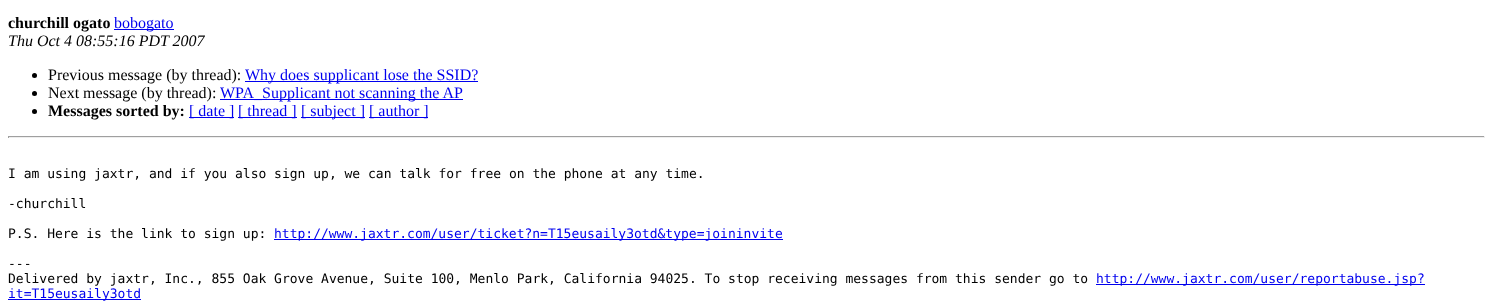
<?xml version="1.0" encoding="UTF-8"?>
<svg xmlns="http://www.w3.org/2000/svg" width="1493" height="303">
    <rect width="100%" height="100%" fill="#FFFFFF"/>
    <text x="8" y="28" font-family="Liberation Serif" font-size="16" font-weight="700" fill="#000000">churchill ogato</text>
    <rect x="114" y="29" width="60" height="1" fill="#0000EE"/>
    <text x="114" y="28" font-family="Liberation Serif" font-size="16" fill="#0000EE">bobogato</text>
    <text x="8" y="46" font-family="Liberation Serif" font-size="16" font-style="italic" fill="#000000">Thu Oct 4 08:55:16 PDT 2007</text>
    <circle cx="34.5" cy="75.5" r="2.5" fill="#000000"/>
    <text x="48" y="80" font-family="Liberation Serif" font-size="16" fill="#000000">Previous message (by thread):</text>
    <rect x="245" y="81" width="233" height="1" fill="#0000EE"/>
    <text x="245" y="80" font-family="Liberation Serif" font-size="16" fill="#0000EE">Why does supplicant lose the SSID?</text>
    <circle cx="34.5" cy="93.5" r="2.5" fill="#000000"/>
    <text x="48" y="98" font-family="Liberation Serif" font-size="16" fill="#000000">Next message (by thread):</text>
    <rect x="220" y="99" width="243" height="1" fill="#0000EE"/>
    <text x="220" y="98" font-family="Liberation Serif" font-size="16" fill="#0000EE">WPA_Supplicant not scanning the AP</text>
    <circle cx="34.5" cy="111.5" r="2.5" fill="#000000"/>
    <text x="48" y="116" font-family="Liberation Serif" font-size="16" font-weight="700" fill="#000000">Messages sorted by:</text>
    <rect x="189" y="117" width="45" height="1" fill="#0000EE"/>
    <text x="189" y="116" font-family="Liberation Serif" font-size="16" fill="#0000EE">[ date ]</text>
    <rect x="238" y="117" width="59" height="1" fill="#0000EE"/>
    <text x="238" y="116" font-family="Liberation Serif" font-size="16" fill="#0000EE">[ thread ]</text>
    <rect x="301" y="117" width="64" height="1" fill="#0000EE"/>
    <text x="301" y="116" font-family="Liberation Serif" font-size="16" fill="#0000EE">[ subject ]</text>
    <rect x="369" y="117" width="59" height="1" fill="#0000EE"/>
    <text x="369" y="116" font-family="Liberation Serif" font-size="16" fill="#0000EE">[ author ]</text>
    <rect x="8" y="136" width="1477" height="1" fill="#9F9F9F"/>
    <rect x="1484" y="136" width="1" height="2" fill="#EEEEEE"/>
    <rect x="8" y="137" width="1477" height="1" fill="#EEEEEE"/>
    <rect x="8" y="136" width="1" height="2" fill="#9F9F9F"/>
    <text x="8" y="178" font-family="DejaVu Sans Mono" font-size="13" fill="#000000">I am using jaxtr, and if you also sign up, we can talk for free on the phone at any time.</text>
    <text x="8" y="208" font-family="DejaVu Sans Mono" font-size="13" fill="#000000">-churchill</text>
    <text x="8" y="238" font-family="DejaVu Sans Mono" font-size="13" fill="#000000">P.S. Here is the link to sign up:</text>
    <rect x="274" y="239" width="509" height="1" fill="#0000EE"/>
    <text x="274" y="238" font-family="DejaVu Sans Mono" font-size="13" fill="#0000EE">http://www.jaxtr.com/user/ticket?n=T15eusaily3otd&amp;type=joininvite</text>
    <text font-family="DejaVu Sans Mono" font-size="13" fill="#000000">
        <tspan x="8" y="268">---</tspan>
        <tspan x="8" y="283">Delivered by jaxtr, Inc., 855 Oak Grove Avenue, Suite 100, Menlo Park, California 94025. To stop receiving messages from this sender go to</tspan>
    </text>
    <rect x="1096" y="284" width="329" height="1" fill="#0000EE"/>
    <text x="1096" y="283" font-family="DejaVu Sans Mono" font-size="13" fill="#0000EE">http://www.jaxtr.com/user/reportabuse.jsp?</text>
    <rect x="8" y="299" width="133" height="1" fill="#0000EE"/>
    <text x="8" y="298" font-family="DejaVu Sans Mono" font-size="13" fill="#0000EE">it=T15eusaily3otd</text>
</svg>
